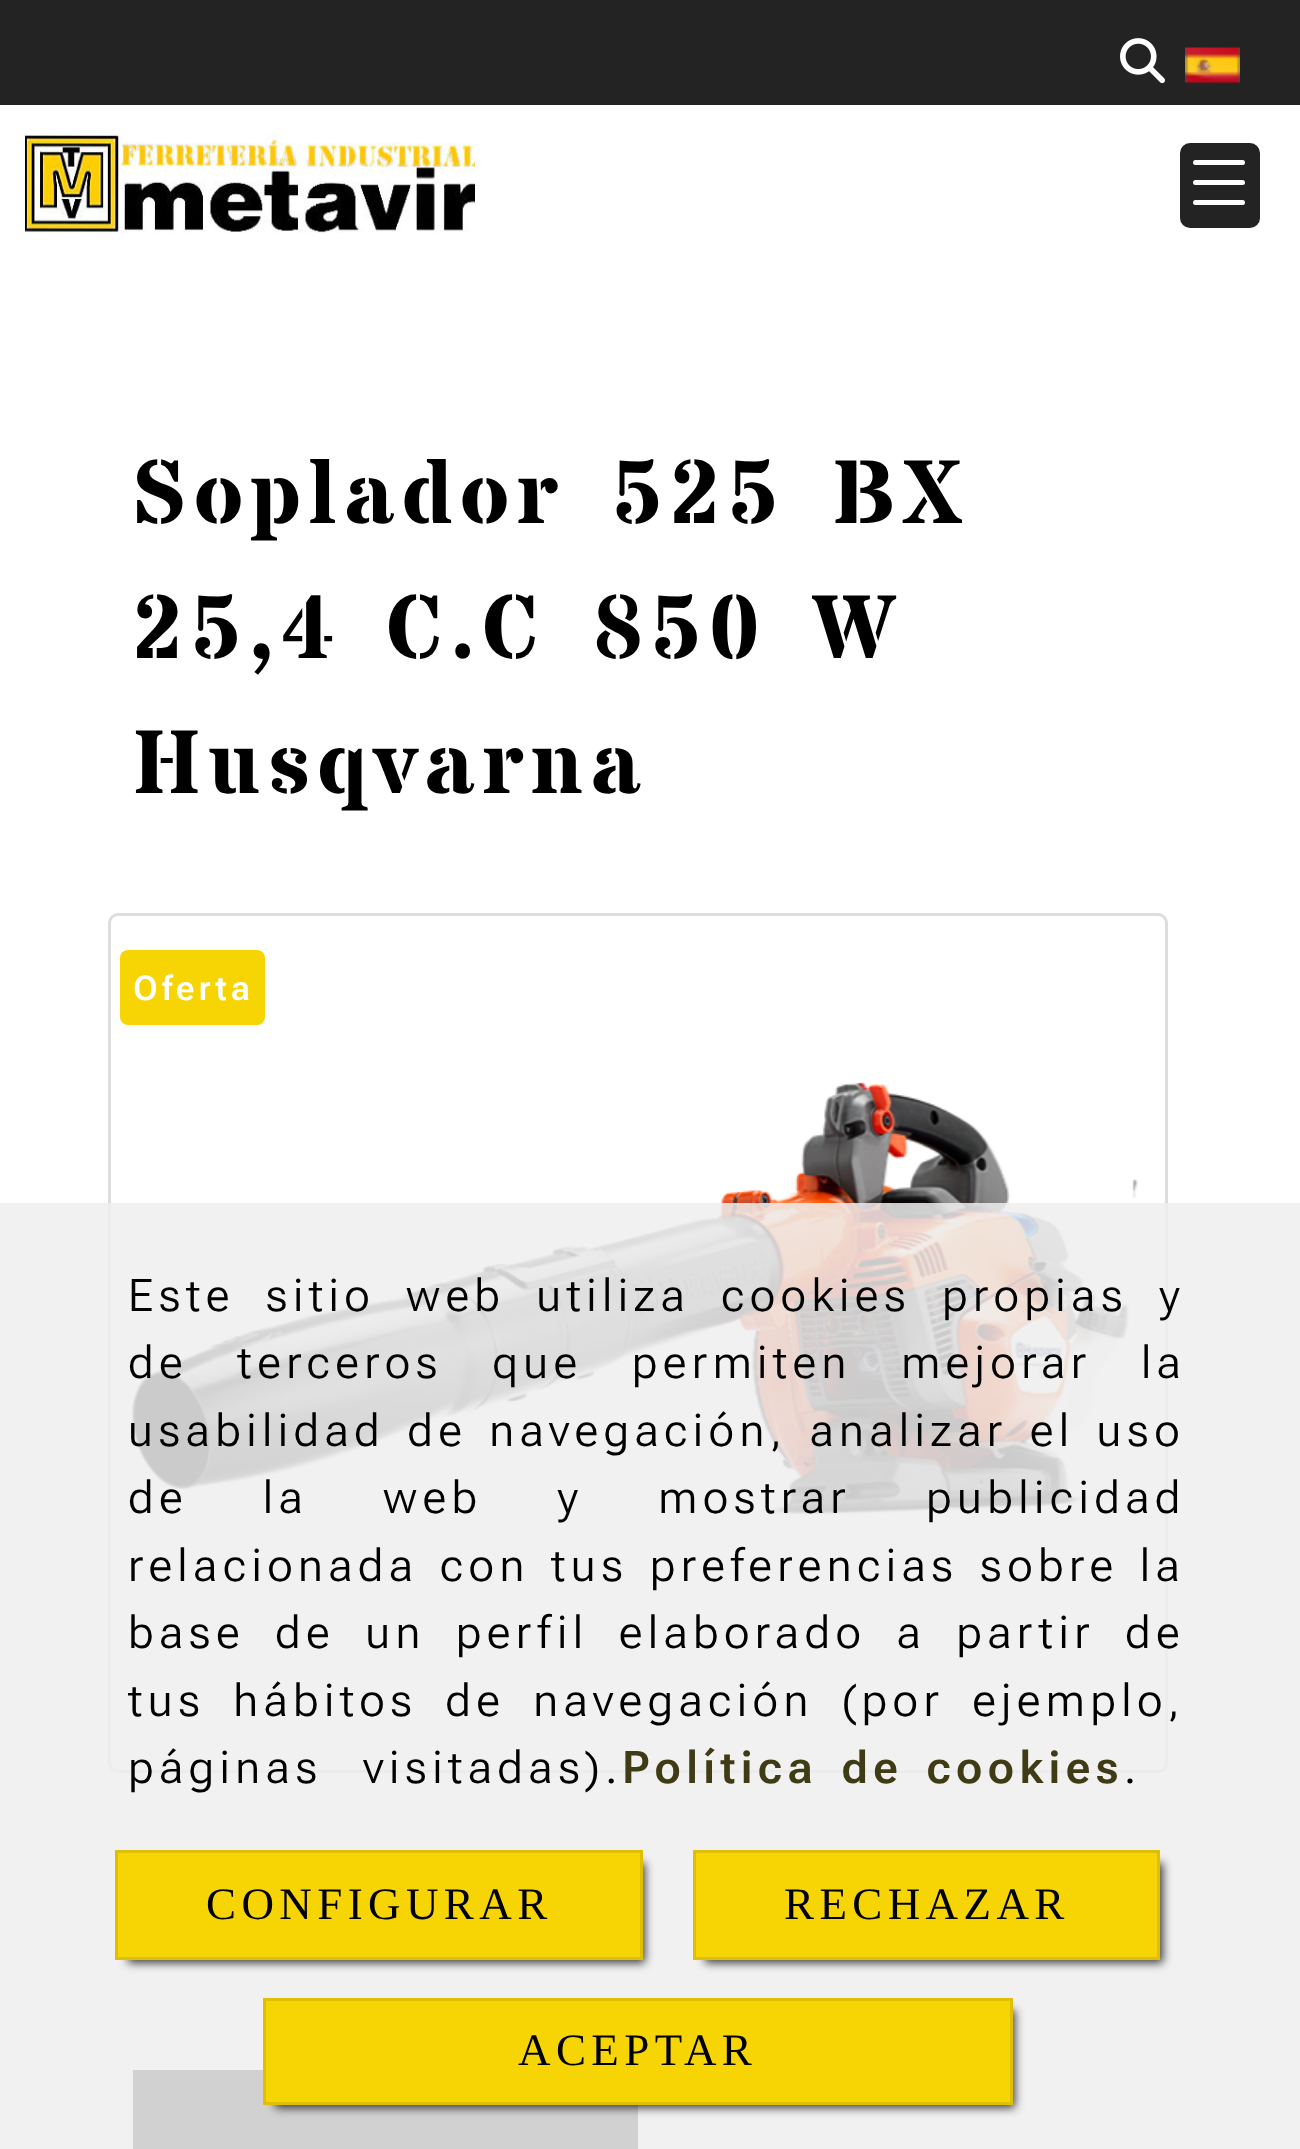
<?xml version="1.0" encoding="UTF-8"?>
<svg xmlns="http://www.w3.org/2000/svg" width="1300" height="2149">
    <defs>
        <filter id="blur1" x="-50%" y="-200%" width="200%" height="500%"><feGaussianBlur stdDeviation="5"/></filter>
    </defs>
    <rect width="100%" height="100%" fill="#FFFFFF"/>
    <rect x="0" y="0" width="1300" height="105" fill="#232323"/>
    <image x="1120" y="38" width="45" height="46" href="img_01.png"/>
    <image x="1185" y="47" width="55" height="37" href="img_02.png"/>
    <image x="25" y="135" width="450" height="98" href="img_03.png"/>
    <rect x="1180" y="143" width="80" height="85" rx="10" fill="#232323"/>
    <rect x="1193" y="180" width="52" height="5" rx="2.5" fill="#FFFFFF"/>
    <rect x="1193" y="160" width="52" height="5" rx="2.5" fill="#FFFFFF"/>
    <rect x="1193" y="200" width="52" height="5" rx="2.5" fill="#FFFFFF"/>
    <text font-family="Stardos Stencil" font-size="90" font-weight="700" letter-spacing="7.25" fill="#000000">
        <tspan x="133" y="523" word-spacing="14.5">Soplador 525 BX</tspan>
        <tspan x="133" y="658" word-spacing="14.5">25,4 C.C 850 W</tspan>
        <tspan x="133" y="793">Husqvarna</tspan>
    </text>
    <rect x="109.5" y="914.5" width="1057" height="857" rx="8.5" fill="none" stroke="#DDDDDD" stroke-width="3"/>
    <rect x="120" y="950" width="145" height="75" rx="8" fill="#F7D504"/>
    <text x="133" y="1000" font-family="Roboto Flex" font-size="34" font-weight="600" letter-spacing="4" fill="#FFFFFF">Oferta</text>
    <image x="130" y="1082" width="1008" height="433" href="img_04.png"/>
    <rect x="133" y="2070" width="505" height="79" fill="#292929"/>
    <rect x="0" y="1203" width="1300" height="946" fill="#EEEEEE" fill-opacity="0.85"/>
    <text font-family="Roboto Flex" font-size="45" font-weight="300" letter-spacing="5.4" fill="#000000">
        <tspan x="128" y="1311" word-spacing="14.5">Este sitio web utiliza cookies propias y</tspan>
        <tspan x="128" y="1378" word-spacing="33">de terceros que permiten mejorar la</tspan>
        <tspan x="128" y="1446" word-spacing="5.75">usabilidad de navegación, analizar el uso</tspan>
        <tspan x="128" y="1513" word-spacing="58.5">de la web y mostrar publicidad</tspan>
        <tspan x="128" y="1581" word-spacing="5">relacionada con tus preferencias sobre la</tspan>
        <tspan x="128" y="1648" word-spacing="13.75">base de un perfil elaborado a partir de</tspan>
        <tspan x="128" y="1716" word-spacing="11.5">tus hábitos de navegación (por ejemplo,</tspan>
        <tspan x="128" y="1783" word-spacing="24">páginas visitadas).</tspan>
    </text>
    <text x="622" y="1783" word-spacing="7" font-family="'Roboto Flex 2'" font-size="45" font-weight="600" letter-spacing="5.4" fill="#3F3B15">Política de cookies</text>
    <text x="1124" y="1783" font-family="Roboto Flex" font-size="45" font-weight="300" letter-spacing="5.4" fill="#000000">.</text>
    <rect x="128" y="1863" width="517" height="100" fill="#000000" fill-opacity="0.75" filter="url(#blur1)"/>
    <rect x="116.5" y="1851.5" width="525" height="107" fill="#F7D504" stroke="#DEBF04" stroke-width="3"/>
    <text x="206" y="1919" font-family="Liberation Serif" font-size="45" letter-spacing="5.4" fill="#000000">CONFIGURAR</text>
    <rect x="705" y="1863" width="458" height="100" fill="#000000" fill-opacity="0.75" filter="url(#blur1)"/>
    <rect x="694.5" y="1851.5" width="464" height="107" fill="#F7D504" stroke="#DEBF04" stroke-width="3"/>
    <text x="784" y="1919" font-family="Liberation Serif" font-size="45" letter-spacing="5.4" fill="#000000">RECHAZAR</text>
    <rect x="275" y="2010" width="740" height="98" fill="#000000" fill-opacity="0.75" filter="url(#blur1)"/>
    <rect x="264.5" y="1999.5" width="747" height="104" fill="#F7D504" stroke="#DEBF04" stroke-width="3"/>
    <text x="518" y="2065" font-family="Liberation Serif" font-size="45" letter-spacing="5.4" fill="#000000">ACEPTAR</text>
</svg>
